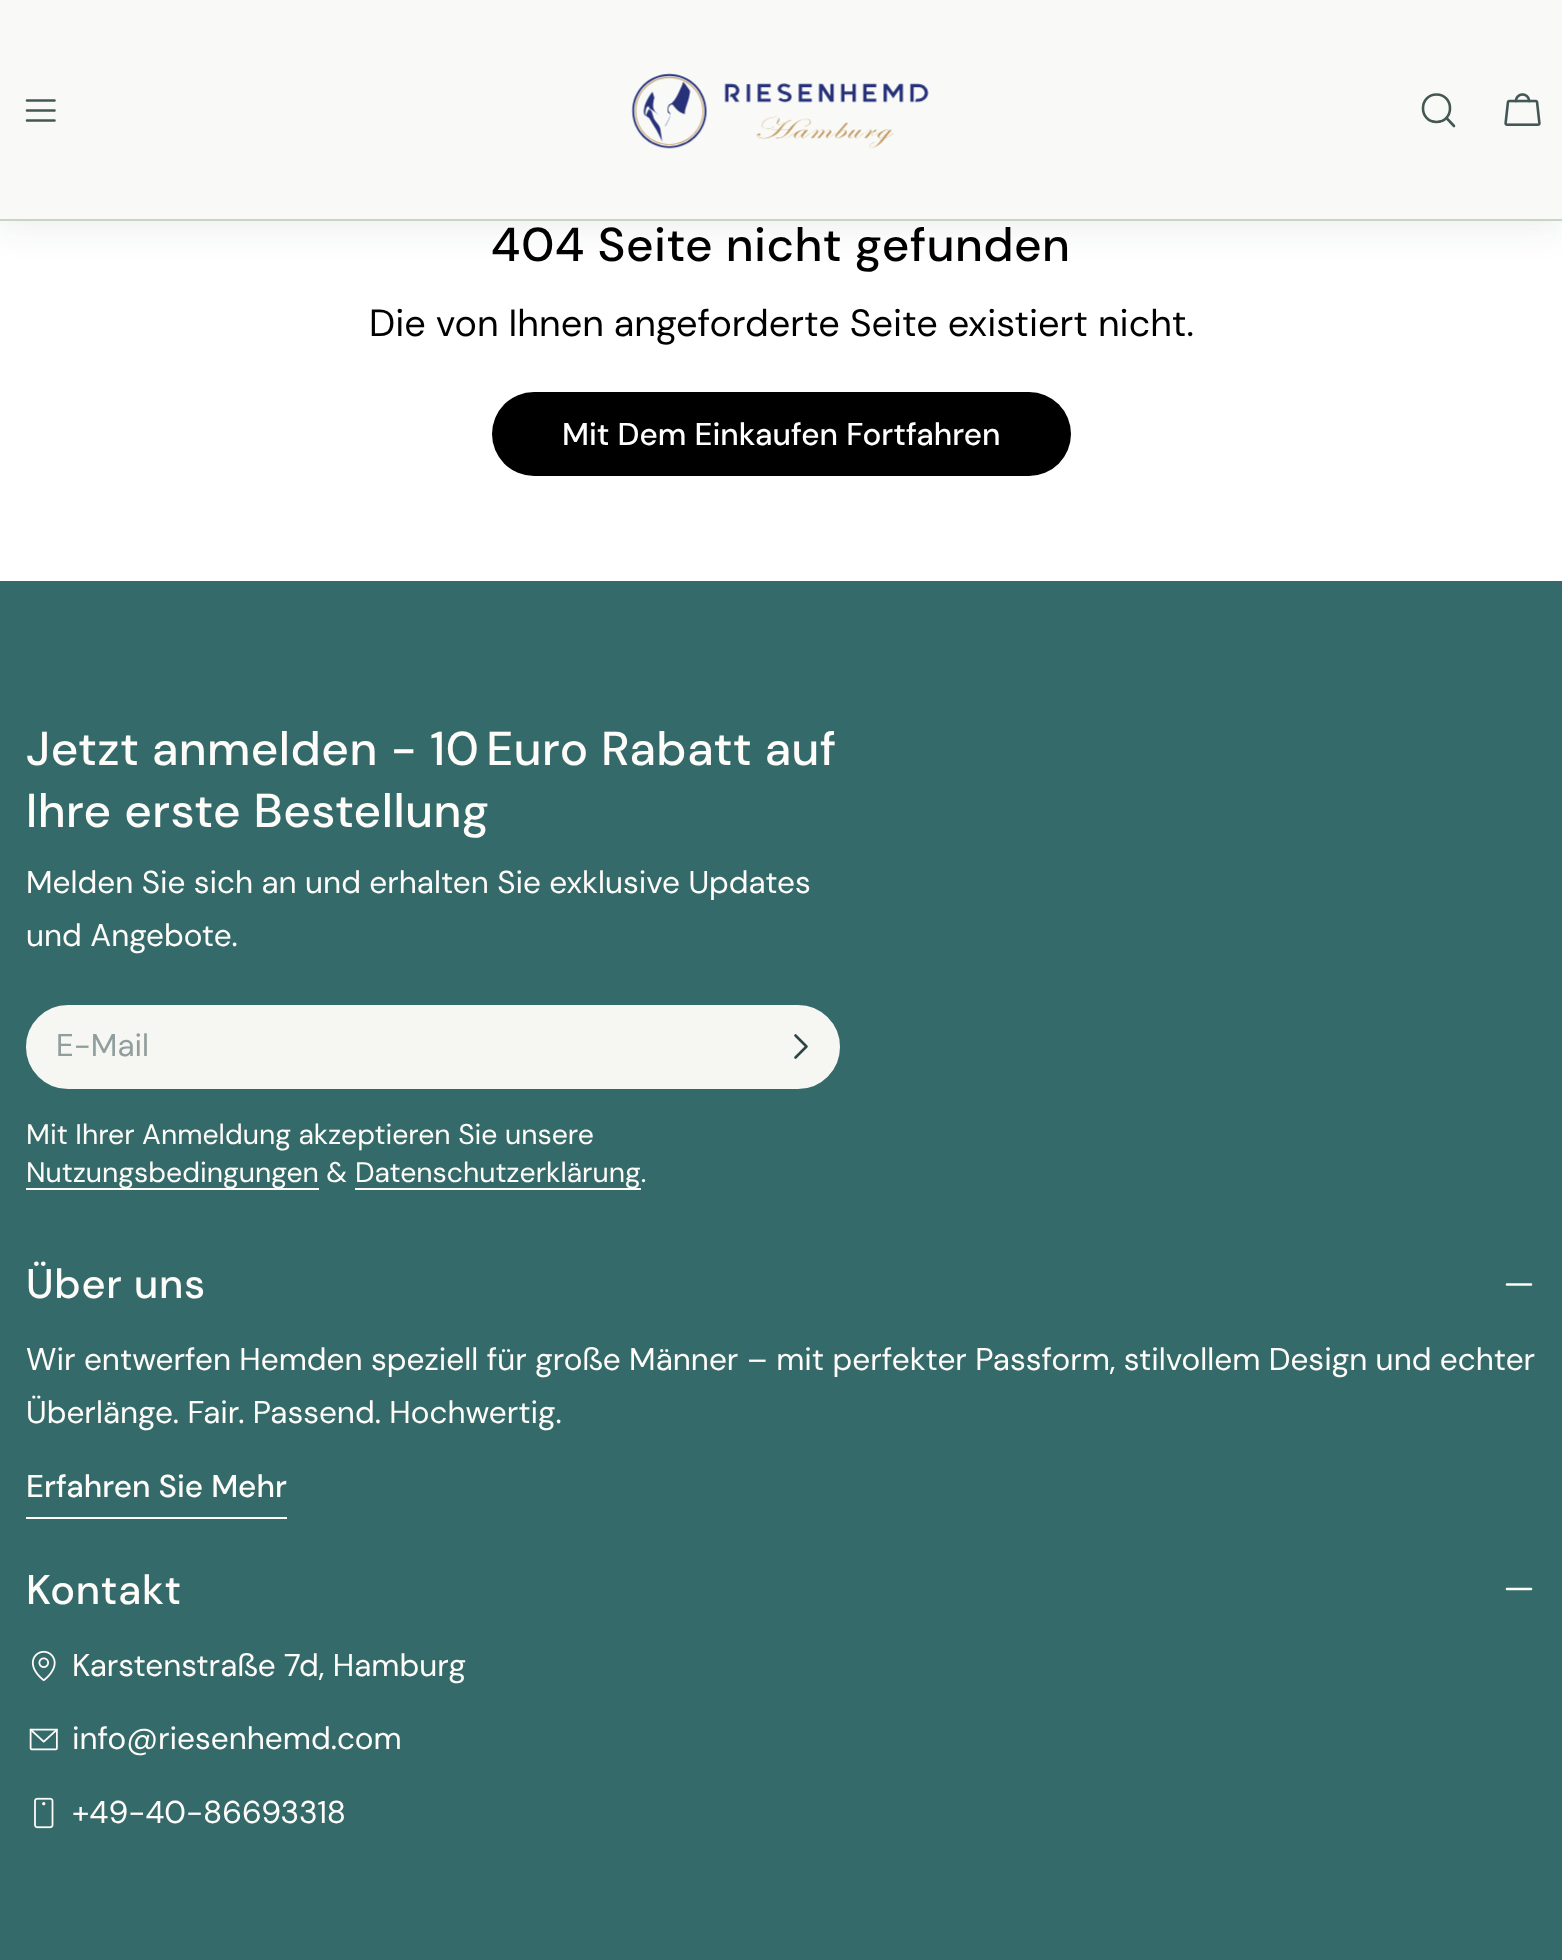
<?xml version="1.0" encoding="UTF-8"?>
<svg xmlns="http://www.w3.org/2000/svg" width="1562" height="1960">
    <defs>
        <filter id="blur1" x="-50%" y="-200%" width="200%" height="500%"><feGaussianBlur stdDeviation="16"/></filter>
    </defs>
    <rect width="100%" height="100%" fill="#FFFFFF"/>
    <rect x="0" y="7" width="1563" height="221" fill="#435854" fill-opacity="0.1" filter="url(#blur1)"/>
    <rect x="0" y="219" width="1562" height="2" fill="#C7D6C4"/>
    <rect x="0" y="0" width="1562" height="219" fill="#F9FAF8"/>
    <path d="M 27 110.5 H 54.5 M 27 100.5 H 54.5 M 27 120.5 H 54.5" fill="none" stroke="#435854" stroke-width="2.6" stroke-linecap="round" stroke-linejoin="round"/>
    <image x="631" y="73" width="298" height="76" href="img_01.png"/>
    <path d="M 1436.5 122 C 1454.5 122 1454.5 94.5 1436.5 94.5 C 1418.5 94.5 1418.5 122 1436.5 122 Z M 1446.5 118 L 1454 126" fill="none" stroke="#435854" stroke-width="2.6" stroke-linecap="round" stroke-linejoin="round"/>
    <image x="1504" y="93" width="37" height="33" href="img_02.png"/>
    <text x="491" y="261" font-family="DM Sans" font-size="47.5" font-weight="500" letter-spacing="0.95" fill="#000000">404 Seite nicht gefunden</text>
    <text x="369" y="336" font-family="DM Sans" font-size="37.8" fill="#000000">Die von Ihnen angeforderte Seite existiert nicht.</text>
    <rect x="492" y="392" width="579" height="84" rx="42" fill="#000000"/>
    <text x="562" y="445" font-family="'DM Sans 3'" font-size="31.5" font-weight="500" fill="#FFFFFF">Mit Dem Einkaufen Fortfahren</text>
    <rect x="0" y="581" width="1562" height="1379" fill="#356A6A"/>
    <text font-family="DM Sans" font-size="47.5" font-weight="500" letter-spacing="0.95" fill="#FDFCF9">
        <tspan x="26" y="765">Jetzt anmelden - 10 Euro Rabatt auf</tspan>
        <tspan x="26" y="827">Ihre erste Bestellung</tspan>
    </text>
    <text font-family="'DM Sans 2'" font-size="31.5" fill="#FDFCF9">
        <tspan x="26" y="893">Melden Sie sich an und erhalten Sie exklusive Updates</tspan>
        <tspan x="26" y="946">und Angebote.</tspan>
    </text>
    <rect x="27" y="1006" width="812" height="82" rx="41" fill="#F6F6F3" stroke="#F6F6F3" stroke-width="2"/>
    <text x="56" y="1056" font-family="'DM Sans 2'" font-size="31.5" fill="#909E9D">E-Mail</text>
    <path d="M 795.5 1035.5 L 806.5 1046.5 L 795.5 1057.5" fill="none" stroke="#2A4646" stroke-width="2.6" stroke-linecap="round" stroke-linejoin="round"/>
    <text x="26" y="1144" font-family="'DM Sans 3'" font-size="28.35" fill="#FDFCF9">Mit Ihrer Anmeldung akzeptieren Sie unsere</text>
    <rect x="26" y="1188" width="293" height="2" fill="#FDFCF9"/>
    <text x="26" y="1182" font-family="'DM Sans 3'" font-size="28.35" fill="#FDFCF9">Nutzungsbedingungen &amp;</text>
    <rect x="355" y="1188" width="286" height="2" fill="#FDFCF9"/>
    <text x="355" y="1182" font-family="'DM Sans 3'" font-size="28.35" fill="#FDFCF9">Datenschutzerklärung.</text>
    <text x="26" y="1298" font-family="'DM Sans 2'" font-size="41.5" font-weight="500" letter-spacing="0.75" fill="#FDFCF9">Über uns</text>
    <path d="M 1507 1284.5 H 1531 M 1507 1284.5 H 1531" fill="none" stroke="#FDFCF9" stroke-width="2.6" stroke-linecap="round" stroke-linejoin="round"/>
    <text font-family="'DM Sans 2'" font-size="31.5" fill="#FDFCF9">
        <tspan x="26" y="1370">Wir entwerfen Hemden speziell für große Männer – mit perfekter Passform, stilvollem Design und echter</tspan>
        <tspan x="26" y="1423">Überlänge. Fair. Passend. Hochwertig.</tspan>
    </text>
    <text x="26" y="1497" font-family="'DM Sans 3'" font-size="31.5" font-weight="500" fill="#FDFCF9">Erfahren Sie Mehr</text>
    <rect x="26" y="1517" width="261" height="2" fill="#FDFCF9"/>
    <text x="26" y="1604" font-family="'DM Sans 2'" font-size="41.5" font-weight="500" letter-spacing="0.75" fill="#FDFCF9">Kontakt</text>
    <path d="M 1507 1589 H 1531 M 1507 1589 H 1531" fill="none" stroke="#FDFCF9" stroke-width="2.6" stroke-linecap="round" stroke-linejoin="round"/>
    <image x="31" y="1650" width="25" height="32" href="img_03.png"/>
    <text x="72" y="1676" font-family="'DM Sans 2'" font-size="31.5" fill="#FDFCF9">Karstenstraße 7d, Hamburg</text>
    <image x="29" y="1728" width="29" height="23" href="img_04.png"/>
    <text x="72" y="1749" font-family="'DM Sans 2'" font-size="31.5" fill="#FDFCF9">info@riesenhemd.com</text>
    <image x="34" y="1797" width="20" height="32" href="img_05.png"/>
    <text x="72" y="1823" font-family="'DM Sans 2'" font-size="31.5" fill="#FDFCF9">+49-40-86693318</text>
</svg>
